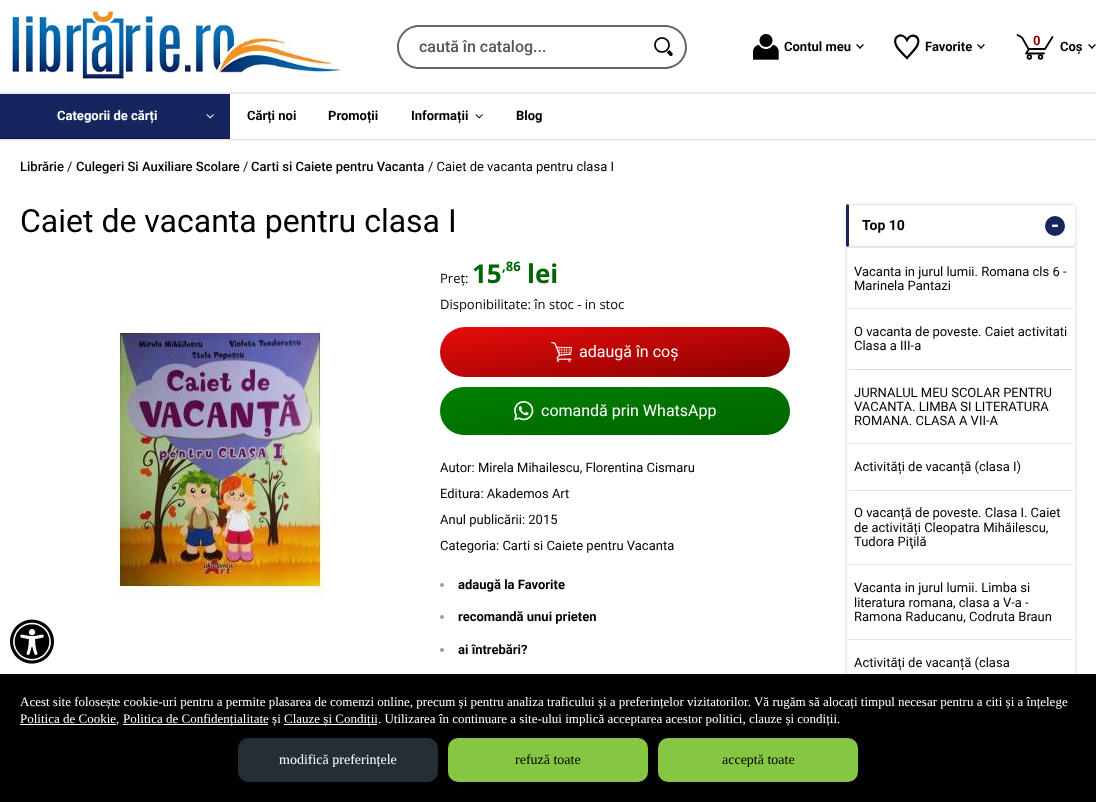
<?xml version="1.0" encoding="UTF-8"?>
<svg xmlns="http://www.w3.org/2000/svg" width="1096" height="802">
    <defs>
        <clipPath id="clip1"><path d="M 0 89 H 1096 V 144 H 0 Z M 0 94 H 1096 V 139 H 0 Z" clip-rule="evenodd"/></clipPath>
        <filter id="blur1" x="-50%" y="-200%" width="200%" height="500%"><feGaussianBlur stdDeviation="1"/></filter>
        <linearGradient id="g1" gradientUnits="userSpaceOnUse" x1="608" y1="303" x2="622" y2="401"><stop offset="0" stop-color="#E80C0C"/><stop offset="1" stop-color="#8B0000"/></linearGradient>
        <linearGradient id="g2" gradientUnits="userSpaceOnUse" x1="609" y1="364" x2="621" y2="458"><stop offset="0" stop-color="#008000"/><stop offset="1" stop-color="#006400"/></linearGradient>
        <clipPath id="clip2"><path d="M 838 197 H 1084 V 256 H 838 Z M 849 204 H 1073 C 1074.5 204 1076 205.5 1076 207 V 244 C 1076 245.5 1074.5 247 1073 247 H 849 C 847.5 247 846 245.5 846 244 V 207 C 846 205.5 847.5 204 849 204 Z" clip-rule="evenodd"/></clipPath>
        <filter id="blur2" x="-50%" y="-200%" width="200%" height="500%"><feGaussianBlur stdDeviation="2.5"/></filter>
    </defs>
    <rect width="100%" height="100%" fill="#FFFFFF"/>
    <image x="10" y="10" width="331" height="70" href="img_01.png"/>
    <path d="M 419 25 H 643 V 69 H 419 C 407 69 397 59 397 47 C 397 35 407 25 419 25 Z M 419 27 H 643 V 67 H 419 C 408 67 399 58 399 47 C 399 36 408 27 419 27 Z" fill="#666666" fill-rule="evenodd"/>
    <text x="419" y="52" font-family="Roboto" font-size="16" font-weight="500" fill="#555555">caută în catalog...</text>
    <path d="M 643 25 H 665 C 677 25 687 35 687 47 C 687 59 677 69 665 69 H 643 Z M 643 27 H 665 C 676 27 685 36 685 47 C 685 58 676 67 665 67 H 643 Z" fill="#666666" fill-rule="evenodd"/>
    <image x="654" y="37" width="19" height="19" href="img_02.png"/>
    <image x="753" y="34" width="26" height="26" href="img_03.png"/>
    <text x="784" y="51" font-family="Roboto" font-size="13" font-weight="700" fill="#000000">Contul meu</text>
    <image x="856" y="44" width="8" height="5" href="img_04.png"/>
    <path d="M 907 40 C 911 32 921.5 36 917.5 45 C 915.5 49.5 910 54 907 58 C 904 55 897.5 49 896 45 C 892 36 902.5 31.5 907 40 Z" fill="none" stroke="#000000" stroke-width="2.2" stroke-linecap="square"/>
    <text x="925" y="51" font-family="Roboto" font-size="13" font-weight="700" fill="#000000">Favorite</text>
    <image x="977" y="44" width="8" height="5" href="img_04.png"/>
    <path d="M 1052.5 37 L 1045 49 H 1028.5 L 1022 37.5 L 1017.5 35 M 1029 49 L 1026 53.5 H 1044" fill="none" stroke="#000000" stroke-width="1.8" stroke-linecap="round" stroke-linejoin="round"/>
    <circle cx="1029.4" cy="57" r="1.8" fill="none" stroke="#000000" stroke-width="1.8"/>
    <circle cx="1040.5" cy="57" r="1.8" fill="none" stroke="#000000" stroke-width="1.8"/>
    <text x="1033" y="45" font-family="Roboto" font-size="13" font-weight="700" fill="#8B0000">0</text>
    <text x="1060" y="51" font-family="Roboto" font-size="13" font-weight="700" fill="#000000">Coș</text>
    <image x="1088" y="44" width="8" height="5" href="img_04.png"/>
    <g clip-path="url(#clip1)">
        <rect x="-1" y="93" width="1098" height="47" fill="#000000" fill-opacity="0.15" filter="url(#blur1)"/>
    </g>
    <rect x="0" y="94" width="230" height="44" fill="#16255E"/>
    <rect x="0" y="138" width="230" height="1" fill="#0A1747"/>
    <text x="57" y="120" font-family="Roboto" font-size="13" font-weight="700" fill="#FFFFFF">Categorii de cărți</text>
    <image x="206" y="114" width="8" height="5" href="img_05.png"/>
    <text x="247" y="120" font-family="Roboto" font-size="13" font-weight="700" fill="#000000">Cărți noi</text>
    <text x="328" y="120" font-family="Roboto" font-size="13" font-weight="700" fill="#000000">Promoții</text>
    <text x="411" y="120" font-family="Roboto" font-size="13" font-weight="700" fill="#000000">Informații</text>
    <image x="475" y="114" width="8" height="5" href="img_06.png"/>
    <text x="516" y="120" font-family="Roboto" font-size="13" font-weight="700" fill="#000000">Blog</text>
    <text x="20" y="171" font-family="Roboto" font-size="13" font-weight="500" fill="#000000">Librărie</text>
    <text x="67" y="171" font-family="Roboto" font-size="13" fill="#000000">/</text>
    <text x="76" y="171" font-family="Roboto" font-size="13" font-weight="500" fill="#000000">Culegeri Si Auxiliare Scolare</text>
    <text x="243" y="171" font-family="Roboto" font-size="13" fill="#000000">/</text>
    <text x="251" y="171" font-family="Roboto" font-size="13" font-weight="500" fill="#000000">Carti si Caiete pentru Vacanta</text>
    <text x="428" y="171" font-family="Roboto" font-size="13" fill="#000000">/ Caiet de vacanta pentru clasa I</text>
    <text x="20" y="232" font-family="Roboto" font-size="32" fill="#000000">Caiet de vacanta pentru clasa I</text>
    <image x="116" y="324" width="209" height="273" href="img_07.png"/>
    <text x="440" y="283" font-family="Open Sans" font-size="13" fill="#000000">Preț:</text>
    <text x="472" y="283" font-family="Open Sans" font-size="26" font-weight="700" fill="#006400">15</text>
    <text x="502" y="271" font-family="Open Sans" font-size="13" font-weight="700" fill="#006400">,86</text>
    <text x="527" y="283" font-family="Open Sans" font-size="26" font-weight="700" fill="#006400">lei</text>
    <text x="440" y="309" font-family="Open Sans" font-size="13" fill="#000000">Disponibilitate: în stoc - in stoc</text>
    <rect x="440" y="327" width="350" height="50" rx="25" fill="url(#g1)"/>
    <image x="551" y="342" width="21" height="20" href="img_08.png"/>
    <text x="579" y="357" font-family="Roboto" font-size="16" fill="#FFFFFF">adaugă în coș</text>
    <rect x="440" y="387" width="350" height="48" rx="24" fill="url(#g2)"/>
    <image x="514" y="401" width="20" height="20" href="img_09.png"/>
    <text x="541" y="416" font-family="Roboto" font-size="16" fill="#FFFFFF">comandă prin WhatsApp</text>
    <text x="440" y="472" font-family="Roboto" font-size="13" fill="#000000">Autor: Mirela Mihailescu, Florentina Cismaru</text>
    <text x="440" y="498" font-family="Roboto" font-size="13" fill="#000000">Editura: Akademos Art</text>
    <text x="440" y="524" font-family="Roboto" font-size="13" fill="#000000">Anul publicării: 2015</text>
    <text x="440" y="550" font-family="Roboto" font-size="13" fill="#000000">Categoria: Carti si Caiete pentru Vacanta</text>
    <circle cx="442" cy="585" r="2" fill="#9D9D9D"/>
    <text x="458" y="589" font-family="Roboto" font-size="13" font-weight="700" fill="#000000">adaugă la Favorite</text>
    <circle cx="442" cy="617" r="2" fill="#9D9D9D"/>
    <text x="458" y="621" font-family="Roboto" font-size="13" font-weight="700" fill="#000000">recomandă unui prieten</text>
    <circle cx="442" cy="650" r="2" fill="#9D9D9D"/>
    <text x="458" y="654" font-family="Roboto" font-size="13" font-weight="700" fill="#000000">ai întrebări?</text>
    <g clip-path="url(#clip2)">
        <rect x="847" y="206" width="228" height="41" rx="2" fill="#000000" fill-opacity="0.15" filter="url(#blur2)"/>
    </g>
    <path d="M 849 204 H 847 L 849 205 H 1073 L 1074 206 L 1075 205 L 1073 204 Z" fill="#E8E8E8"/>
    <path d="M 1076 244 C 1076 239 1077 207 1075 205 L 1074 206 C 1076 207 1076 244 1074 245 L 1075 246 Z" fill="#E8E8E8"/>
    <path d="M 849 247 H 1073 L 1075 246 L 1074 245 L 1073 246 H 849 L 847 247 Z" fill="#E8E8E8"/>
    <path d="M 849 205 L 847 204 C 846 205 846 206 846 207 V 244 C 846 245 846 246 847 247 L 849 246 Z" fill="#16255E"/>
    <text x="862" y="230" font-family="Roboto" font-size="14" font-weight="700" fill="#000000">Top 10</text>
    <circle cx="1055" cy="226" r="10" fill="#16255E"/>
    <text x="1049" y="231" font-family="Liberation Mono" font-size="20" font-weight="700" fill="#FFFFFF">-</text>
    <rect x="847" y="249" width="228" height="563" rx="2" fill="#000000" fill-opacity="0.15" filter="url(#blur2)"/>
    <rect x="846.5" y="247.5" width="229" height="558" rx="2.5" fill="#FFFFFF" stroke="#E8E8E8"/>
    <rect x="849" y="308" width="224" height="1" fill="#E0E0E0"/>
    <text font-family="Roboto" font-size="13" fill="#000000">
        <tspan x="854" y="276">Vacanta in jurul lumii. Romana cls 6 -</tspan>
        <tspan x="854" y="290">Marinela Pantazi</tspan>
    </text>
    <rect x="849" y="369" width="224" height="1" fill="#E0E0E0"/>
    <text font-family="Roboto" font-size="13" fill="#000000">
        <tspan x="854" y="336">O vacanta de poveste. Caiet activitati</tspan>
        <tspan x="854" y="350">Clasa a III-a</tspan>
    </text>
    <rect x="849" y="443" width="224" height="1" fill="#E0E0E0"/>
    <text font-family="Roboto" font-size="13" fill="#000000">
        <tspan x="854" y="397">JURNALUL MEU SCOLAR PENTRU</tspan>
        <tspan x="854" y="411">VACANTA. LIMBA SI LITERATURA</tspan>
        <tspan x="854" y="425">ROMANA. CLASA A VII-A</tspan>
    </text>
    <rect x="849" y="490" width="224" height="1" fill="#E0E0E0"/>
    <text x="854" y="471" font-family="Roboto" font-size="13" fill="#000000">Activități de vacanță (clasa I)</text>
    <rect x="849" y="564" width="224" height="1" fill="#E0E0E0"/>
    <text font-family="Roboto" font-size="13" fill="#000000">
        <tspan x="854" y="517">O vacanță de poveste. Clasa I. Caiet</tspan>
        <tspan x="854" y="532">de activități Cleopatra Mihăilescu,</tspan>
        <tspan x="854" y="546">Tudora Piţilă</tspan>
    </text>
    <rect x="849" y="639" width="224" height="1" fill="#E0E0E0"/>
    <text font-family="Roboto" font-size="13" fill="#000000">
        <tspan x="854" y="592">Vacanta in jurul lumii. Limba si</tspan>
        <tspan x="854" y="607">literatura romana, clasa a V-a -</tspan>
        <tspan x="854" y="621">Ramona Raducanu, Codruta Braun</tspan>
    </text>
    <text x="854" y="667" font-family="Roboto" font-size="13" fill="#000000">Activități de vacanță (clasa</text>
    <rect x="0" y="674" width="1096" height="128" fill="#000000"/>
    <image x="10" y="619" width="44" height="45" href="img_10.png"/>
    <text x="20" y="706" font-family="Liberation Serif" font-size="13" fill="#FFFFFF">Acest site folosește cookie-uri pentru a permite plasarea de comenzi online, precum și pentru analiza traficului și a preferințelor vizitatorilor. Vă rugăm să alocați timpul necesar pentru a citi și a înțelege</text>
    <rect x="20" y="724" width="96" height="1" fill="#FFFFFF"/>
    <text x="20" y="723" font-family="Liberation Serif" font-size="13" fill="#FFFFFF">Politica de Cookie,</text>
    <rect x="123" y="724" width="145" height="1" fill="#FFFFFF"/>
    <text x="123" y="723" font-family="Liberation Serif" font-size="13" fill="#FFFFFF">Politica de Confidențialitate și</text>
    <rect x="284" y="724" width="93" height="1" fill="#FFFFFF"/>
    <text x="284" y="723" font-family="Liberation Serif" font-size="13" fill="#FFFFFF">Clauze și Condiții. Utilizarea în continuare a site-ului implică acceptarea acestor politici, clauze și condiții.</text>
    <rect x="238" y="738" width="200" height="44" rx="10" fill="#252D35"/>
    <text x="279" y="764" font-family="Liberation Serif" font-size="14" fill="#FFFFFF">modifică preferințele</text>
    <rect x="448" y="738" width="200" height="44" rx="10" fill="#85C742"/>
    <text x="515" y="764" font-family="Liberation Serif" font-size="14" fill="#000000">refuză toate</text>
    <rect x="658" y="738" width="200" height="44" rx="10" fill="#85C742"/>
    <text x="722" y="764" font-family="Liberation Serif" font-size="14" fill="#000000">acceptă toate</text>
</svg>
